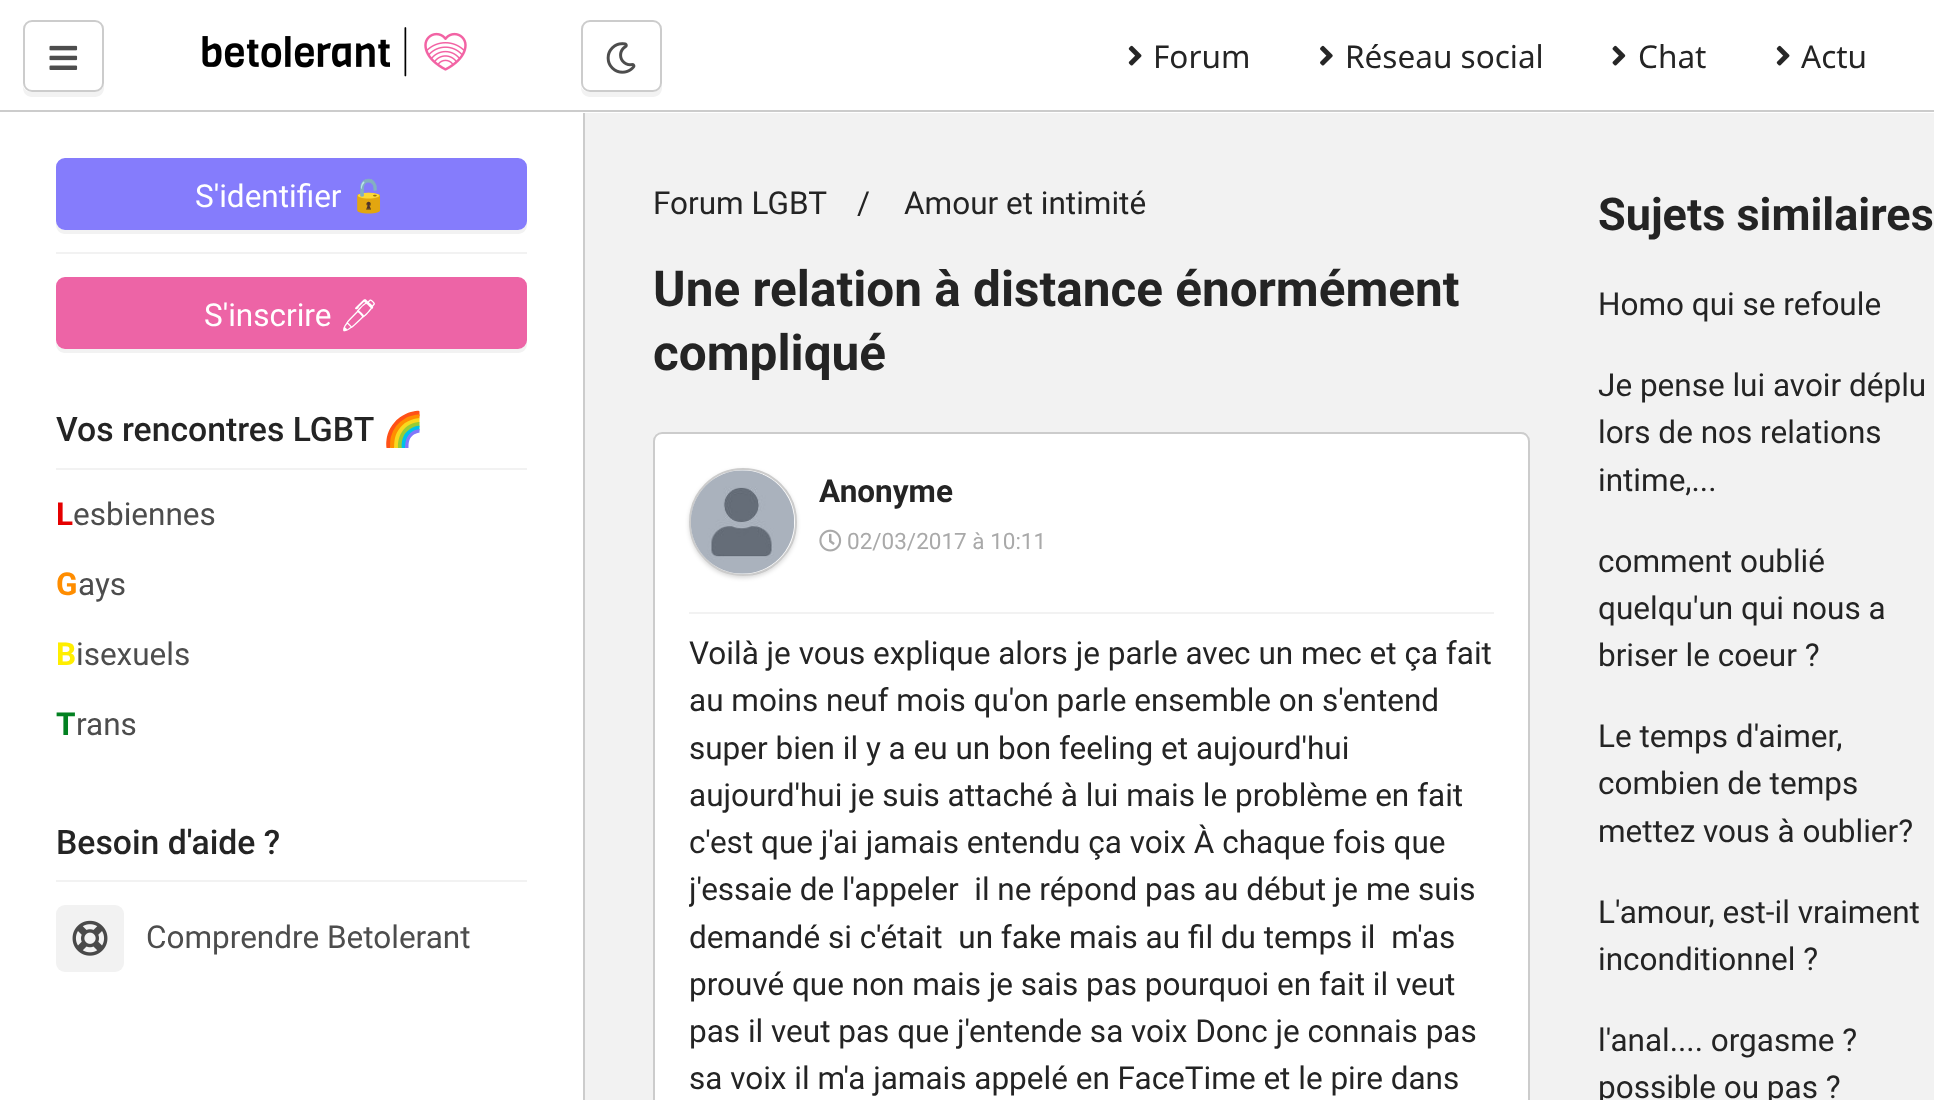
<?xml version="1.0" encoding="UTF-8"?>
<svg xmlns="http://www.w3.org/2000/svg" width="1934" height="1100">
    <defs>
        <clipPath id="clip1"><path d="M 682 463 H 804 V 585 H 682 Z M 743 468 C 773 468 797 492 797 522 C 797 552 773 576 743 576 C 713 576 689 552 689 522 C 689 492 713 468 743 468 Z" clip-rule="evenodd"/></clipPath>
        <filter id="blur1" x="-50%" y="-200%" width="200%" height="500%"><feGaussianBlur stdDeviation="2"/></filter>
        <clipPath id="clip2"><rect x="689" y="630" width="805" height="470"/></clipPath>
    </defs>
    <rect width="100%" height="100%" fill="#F2F2F2"/>
    <rect x="0" y="0" width="1934" height="113" fill="#FFFFFF"/>
    <rect x="0" y="110" width="1934" height="2" fill="#CCCCCC"/>
    <path d="M 23 86 V 88 C 23 93 27 97 32 97 H 95 C 100 97 104 93 104 88 V 34 V 31 V 83 C 104 88 99 92 94 92 H 32 C 28 92 24 90 23 86 Z" fill="#F2F2F2"/>
    <rect x="23" y="20" width="81" height="72" rx="9" fill="#FFFFFF"/>
    <rect x="24" y="21" width="79" height="70" rx="8" fill="none" stroke="#000000" stroke-opacity="0.2" stroke-width="2"/>
    <image x="49" y="45" width="29" height="25" href="img_01.png"/>
    <image x="202" y="27" width="265" height="50" href="img_02.png"/>
    <path d="M 581 86 V 88 C 581 93 585 97 590 97 H 653 C 658 97 662 93 662 88 V 34 V 31 V 83 C 662 88 657 92 652 92 H 590 C 586 92 582 90 581 86 Z" fill="#F2F2F2"/>
    <rect x="581" y="20" width="81" height="72" rx="9" fill="#FFFFFF"/>
    <rect x="582" y="21" width="79" height="70" rx="8" fill="none" stroke="#000000" stroke-opacity="0.2" stroke-width="2"/>
    <image x="606" y="42" width="30" height="32" href="img_03.png"/>
    <image x="1128" y="45" width="14" height="21" href="img_04.png"/>
    <text x="1153" y="68" font-family="Noto Sans" font-size="31.5" fill="#242424">Forum</text>
    <image x="1320" y="45" width="13" height="21" href="img_05.png"/>
    <text x="1345" y="68" font-family="Noto Sans" font-size="31.5" fill="#242424">Réseau social</text>
    <image x="1612" y="45" width="14" height="21" href="img_06.png"/>
    <text x="1638" y="68" font-family="Noto Sans" font-size="31.5" fill="#242424">Chat</text>
    <image x="1776" y="45" width="14" height="21" href="img_04.png"/>
    <text x="1801" y="68" font-family="Noto Sans" font-size="31.5" fill="#242424">Actu</text>
    <rect x="0" y="113" width="583" height="987" fill="#FFFFFF"/>
    <rect x="583" y="113" width="2" height="987" fill="#CCCCCC"/>
    <path d="M 56 169 V 225 C 56 230 60 234 65 234 H 518 C 523 234 527 230 527 225 V 171 L 526 168 V 220 C 526 225 522 230 518 230 H 65 C 60 230 56 225 56 220 Z" fill="#F2F2F2"/>
    <rect x="57" y="159" width="469" height="70" rx="8" fill="#857CFC" stroke="#857CFC" stroke-width="2"/>
    <text x="195" y="207" font-family="Roboto" font-size="31.5" fill="#FFFFFF">S'identifier</text>
    <text x="349" y="207" font-family="Noto Color Emoji" font-size="31.5" fill="#FFFFFF">🔓</text>
    <rect x="56" y="252" width="471" height="2" fill="#F2F2F2"/>
    <path d="M 56 288 V 344 C 56 349 60 353 65 353 H 518 C 523 353 527 349 527 344 V 290 L 526 287 V 340 C 526 345 522 349 518 349 H 65 C 60 349 56 345 56 340 Z" fill="#F2F2F2"/>
    <rect x="57" y="278" width="469" height="70" rx="8" fill="#ED64A6" stroke="#ED64A6" stroke-width="2"/>
    <text x="204" y="326" font-family="Roboto" font-size="31.5" fill="#FFFFFF">S'inscrire</text>
    <text x="339" y="326" font-family="Noto Emoji" font-size="31.5" fill="#FFFFFF">🖊</text>
    <text x="56" y="441" font-family="Roboto" font-size="33.75" font-weight="500" fill="#242424">Vos rencontres LGBT</text>
    <text x="382" y="441" font-family="Noto Color Emoji" font-size="33.75" fill="#242424">🌈</text>
    <rect x="56" y="468" width="471" height="2" fill="#F2F2F2"/>
    <text x="56" y="525" font-family="Roboto" font-size="31.5" font-weight="700" fill="#E50000">L</text>
    <text x="73" y="525" font-family="Roboto" font-size="31.5" fill="#4D4D4D">esbiennes</text>
    <text x="56" y="595" font-family="Roboto" font-size="31.5" font-weight="700" fill="#FF8D00">G</text>
    <text x="78" y="595" font-family="Roboto" font-size="31.5" fill="#4D4D4D">ays</text>
    <text x="56" y="665" font-family="Roboto" font-size="31.5" font-weight="700" fill="#FFEE00">B</text>
    <text x="76" y="665" font-family="Roboto" font-size="31.5" fill="#4D4D4D">isexuels</text>
    <text x="56" y="735" font-family="Roboto" font-size="31.5" font-weight="700" fill="#028121">T</text>
    <text x="76" y="735" font-family="Roboto" font-size="31.5" fill="#4D4D4D">rans</text>
    <text x="56" y="854" font-family="Roboto" font-size="33.75" font-weight="500" fill="#242424">Besoin d'aide ?</text>
    <rect x="56" y="880" width="471" height="2" fill="#F2F2F2"/>
    <rect x="56" y="905" width="68" height="67" rx="9" fill="#F2F2F2"/>
    <image x="72" y="920" width="36" height="36" href="img_07.png"/>
    <text x="146" y="948" font-family="Roboto" font-size="31.5" fill="#4D4D4D">Comprendre Betolerant</text>
    <text x="653" y="214" font-family="Roboto" font-size="31.5" fill="#242424">Forum LGBT</text>
    <text x="857" y="214" font-family="Roboto" font-size="31.5" fill="#242424">/</text>
    <text x="904" y="214" font-family="Roboto" font-size="31.5" fill="#242424">Amour et intimité</text>
    <text font-family="Roboto" font-size="49.5" font-weight="700" fill="#242424">
        <tspan x="653" y="306">Une relation à distance énormément</tspan>
        <tspan x="653" y="370">compliqué</tspan>
    </text>
    <path d="M 662 432 H 1521 C 1526 432 1530 436 1530 441 V 1100 H 653 V 441 C 653 436 657 432 662 432 Z" fill="#FFFFFF"/>
    <rect x="654" y="433" width="875" height="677" rx="8" fill="none" stroke="#000000" stroke-opacity="0.2" stroke-width="2"/>
    <g clip-path="url(#clip1)">
        <rect x="689" y="470" width="108" height="108" rx="54" fill="#000000" fill-opacity="0.15" filter="url(#blur1)"/>
    </g>
    <circle cx="743" cy="522" r="53" fill="none" stroke="#000000" stroke-opacity="0.2" stroke-width="2"/>
    <image x="691" y="470" width="104" height="104" href="img_08.png"/>
    <text x="819" y="502" font-family="Roboto" font-size="31.5" font-weight="700" fill="#242424">Anonyme</text>
    <image x="819" y="529" width="23" height="23" href="img_09.png"/>
    <text x="847" y="549" font-family="Roboto" font-size="22.5" fill="#A9A9A9">02/03/2017 à 10:11</text>
    <rect x="689" y="612" width="805" height="2" fill="#F2F2F2"/>
    <text font-family="Roboto" font-size="31.5" fill="#242424">
        <tspan x="689" y="664">Voilà je vous explique alors je parle avec un mec et ça fait</tspan>
        <tspan x="689" y="711">au moins neuf mois qu'on parle ensemble on s'entend</tspan>
        <tspan x="689" y="759">super bien il y a eu un bon feeling et aujourd'hui</tspan>
        <tspan x="689" y="806">aujourd'hui je suis attaché à lui mais le problème en fait</tspan>
        <tspan x="689" y="853">c'est que j'ai jamais entendu ça voix À chaque fois que</tspan>
    </text>
    <g clip-path="url(#clip2)">
        <text x="689" y="900" font-family="Roboto" font-size="31.5" fill="#242424" xml:space="preserve">j'essaie de l'appeler  il ne répond pas au début je me suis</text>
    </g>
    <text font-family="Roboto" font-size="31.5" fill="#242424" xml:space="preserve"><tspan x="689" y="948">demandé si c'était  un fake mais au fil du temps il  m'as</tspan><tspan x="689" y="995">prouvé que non mais je sais pas pourquoi en fait il veut</tspan><tspan x="689" y="1042">pas il veut pas que j'entende sa voix Donc je connais pas</tspan><tspan x="689" y="1089">sa voix il m'a jamais appelé en FaceTime et le pire dans</tspan></text>
    <text x="1598" y="230" font-family="Roboto" font-size="45" font-weight="700" fill="#242424">Sujets similaires</text>
    <text x="1598" y="315" font-family="Roboto" font-size="31.5" fill="#242424">Homo qui se refoule</text>
    <text font-family="Roboto" font-size="31.5" fill="#242424">
        <tspan x="1598" y="396">Je pense lui avoir déplu</tspan>
        <tspan x="1598" y="443">lors de nos relations</tspan>
        <tspan x="1598" y="491">intime,...</tspan>
    </text>
    <text font-family="Roboto" font-size="31.5" fill="#242424">
        <tspan x="1598" y="572">comment oublié</tspan>
        <tspan x="1598" y="619">quelqu'un qui nous a</tspan>
        <tspan x="1598" y="666">briser le coeur ?</tspan>
    </text>
    <text font-family="Roboto" font-size="31.5" fill="#242424">
        <tspan x="1598" y="747">Le temps d'aimer,</tspan>
        <tspan x="1598" y="794">combien de temps</tspan>
        <tspan x="1598" y="842">mettez vous à oublier?</tspan>
    </text>
    <text font-family="Roboto" font-size="31.5" fill="#242424">
        <tspan x="1598" y="923">L'amour, est-il vraiment</tspan>
        <tspan x="1598" y="970">inconditionnel ?</tspan>
    </text>
    <text font-family="Roboto" font-size="31.5" fill="#242424">
        <tspan x="1598" y="1051">l'anal.... orgasme ?</tspan>
        <tspan x="1598" y="1098">possible ou pas ?</tspan>
    </text>
</svg>
